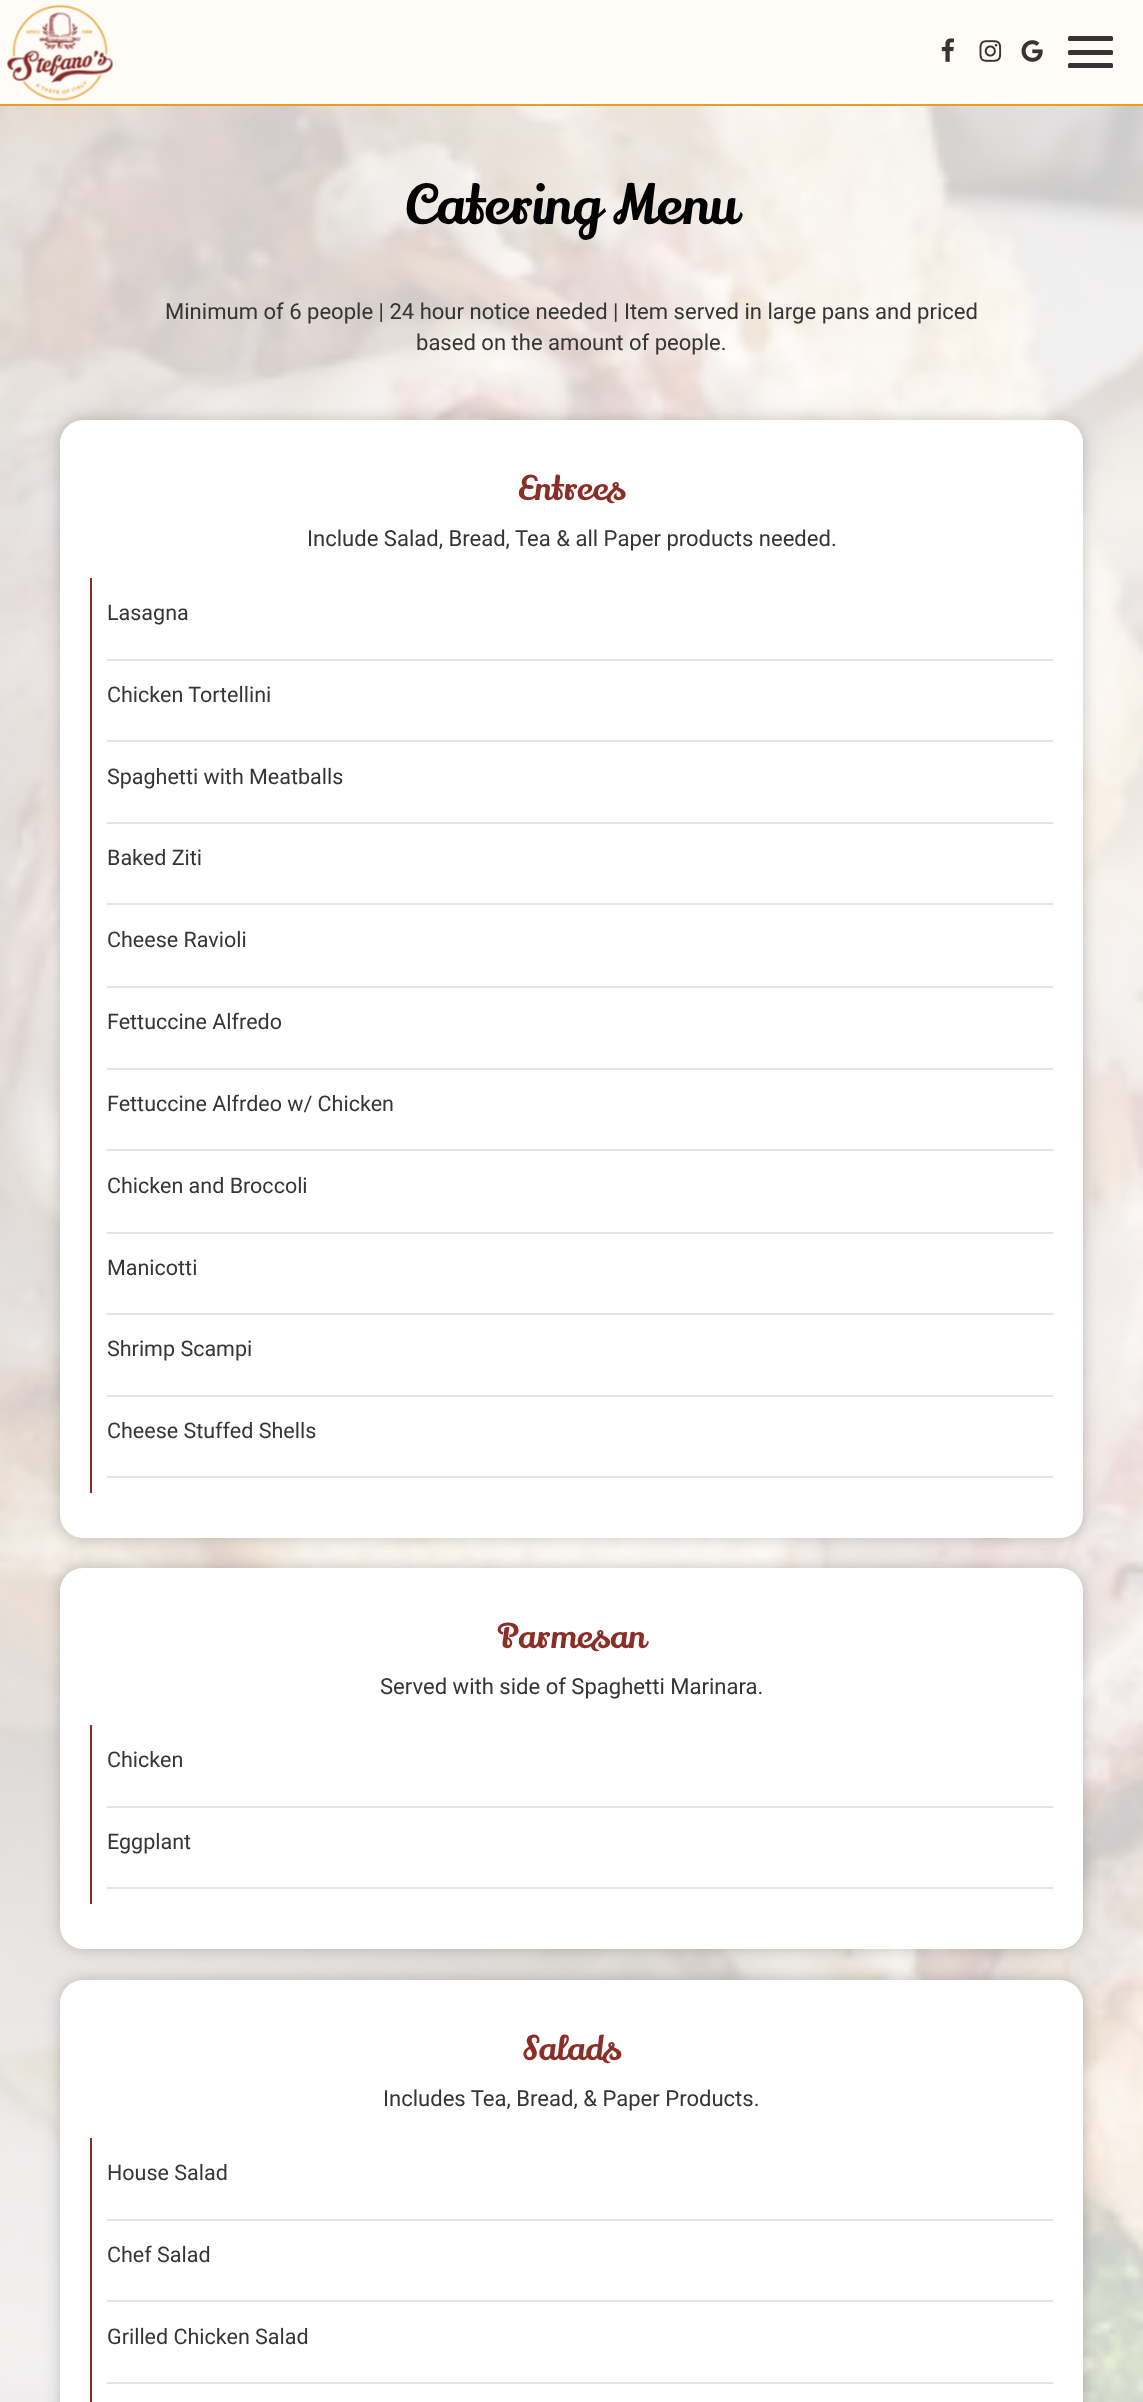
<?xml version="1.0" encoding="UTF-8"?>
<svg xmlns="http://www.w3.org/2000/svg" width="1143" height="2402">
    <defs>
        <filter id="blur1" x="-50%" y="-200%" width="200%" height="500%"><feGaussianBlur stdDeviation="7.5"/></filter>
    </defs>
    <rect width="100%" height="100%" fill="#FFFFFF"/>
    <image x="0" y="106" width="1143" height="2296" href="img_01.png"/>
    <rect x="0" y="0" width="1143" height="104" fill="#FFFBF7"/>
    <image x="7" y="5" width="106" height="96" href="img_02.png"/>
    <rect x="0" y="104" width="1143" height="2" fill="#EB9C21"/>
    <rect x="1068" y="36" width="45" height="5" rx="1.5" fill="#353535"/>
    <rect x="1068" y="50" width="45" height="5" rx="1.5" fill="#353535"/>
    <rect x="1068" y="63" width="45" height="5" rx="1.5" fill="#353535"/>
    <image x="941" y="38" width="13" height="24" href="img_03.png"/>
    <image x="979" y="40" width="23" height="22" href="img_04.png"/>
    <image x="1021" y="40" width="22" height="22" href="img_05.png"/>
    <text x="405" y="224" font-family="Lily Script One" font-size="54" fill="#000000">Catering Menu</text>
    <text x="165" y="319" font-family="Roboto" font-size="22.05" fill="#353535">Minimum of 6 people | 24 hour notice needed | Item served in large pans and priced</text>
    <text x="416" y="350" font-family="Roboto" font-size="22.05" fill="#353535">based on the amount of people.</text>
    <rect x="60" y="420" width="1023" height="1118" rx="23" fill="#000000" fill-opacity="0.2" filter="url(#blur1)"/>
    <rect x="60" y="420" width="1023" height="1118" rx="23" fill="#FFFFFF"/>
    <text x="518" y="500" font-family="Lily Script One" font-size="33.5" fill="#8C2E28">Entrees</text>
    <text x="307" y="546" font-family="Roboto" font-size="22.05" fill="#353535">Include Salad, Bread, Tea &amp; all Paper products needed.</text>
    <rect x="90" y="578" width="2" height="915" fill="#8C2E28"/>
    <rect x="107" y="659" width="946" height="2" fill="#E4E4E4"/>
    <text x="107" y="620" font-family="Roboto" font-size="21.5" fill="#353535">Lasagna</text>
    <rect x="107" y="740" width="946" height="2" fill="#E4E4E4"/>
    <text x="107" y="702" font-family="Roboto" font-size="21.5" fill="#353535">Chicken Tortellini</text>
    <rect x="107" y="822" width="946" height="2" fill="#E4E4E4"/>
    <text x="107" y="784" font-family="Roboto" font-size="21.5" fill="#353535">Spaghetti with Meatballs</text>
    <rect x="107" y="903" width="946" height="2" fill="#E4E4E4"/>
    <text x="107" y="865" font-family="Roboto" font-size="21.5" fill="#353535">Baked Ziti</text>
    <rect x="107" y="986" width="946" height="2" fill="#E4E4E4"/>
    <text x="107" y="947" font-family="Roboto" font-size="21.5" fill="#353535">Cheese Ravioli</text>
    <rect x="107" y="1068" width="946" height="2" fill="#E4E4E4"/>
    <text x="107" y="1029" font-family="Roboto" font-size="21.5" fill="#353535">Fettuccine Alfredo</text>
    <rect x="107" y="1149" width="946" height="2" fill="#E4E4E4"/>
    <text x="107" y="1111" font-family="Roboto" font-size="21.5" fill="#353535">Fettuccine Alfrdeo w/ Chicken</text>
    <rect x="107" y="1232" width="946" height="2" fill="#E4E4E4"/>
    <text x="107" y="1193" font-family="Roboto" font-size="21.5" fill="#353535">Chicken and Broccoli</text>
    <rect x="107" y="1313" width="946" height="2" fill="#E4E4E4"/>
    <text x="107" y="1275" font-family="Roboto" font-size="21.5" fill="#353535">Manicotti</text>
    <rect x="107" y="1395" width="946" height="2" fill="#E4E4E4"/>
    <text x="107" y="1356" font-family="Roboto" font-size="21.5" fill="#353535">Shrimp Scampi</text>
    <rect x="107" y="1476" width="946" height="2" fill="#E4E4E4"/>
    <text x="107" y="1438" font-family="Roboto" font-size="21.5" fill="#353535">Cheese Stuffed Shells</text>
    <rect x="60" y="1568" width="1023" height="381" rx="23" fill="#000000" fill-opacity="0.2" filter="url(#blur1)"/>
    <rect x="60" y="1568" width="1023" height="381" rx="23" fill="#FFFFFF"/>
    <text x="497" y="1648" font-family="Lily Script One" font-size="33.5" fill="#8C2E28">Parmesan</text>
    <text x="380" y="1694" font-family="Roboto" font-size="22.05" fill="#353535">Served with side of Spaghetti Marinara.</text>
    <rect x="90" y="1725" width="2" height="179" fill="#8C2E28"/>
    <rect x="107" y="1806" width="946" height="2" fill="#E4E4E4"/>
    <text x="107" y="1767" font-family="Roboto" font-size="21.5" fill="#353535">Chicken</text>
    <rect x="107" y="1887" width="946" height="2" fill="#E4E4E4"/>
    <text x="107" y="1849" font-family="Roboto" font-size="21.5" fill="#353535">Eggplant</text>
    <rect x="60" y="1980" width="1023" height="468" rx="23" fill="#000000" fill-opacity="0.2" filter="url(#blur1)"/>
    <rect x="60" y="1980" width="1023" height="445" rx="23" fill="#FFFFFF"/>
    <text x="522" y="2060" font-family="Lily Script One" font-size="33.5" fill="#8C2E28">Salads</text>
    <text x="383" y="2106" font-family="Roboto" font-size="22.05" fill="#353535">Includes Tea, Bread, &amp; Paper Products.</text>
    <rect x="90" y="2138" width="2" height="264" fill="#8C2E28"/>
    <rect x="107" y="2219" width="946" height="2" fill="#E4E4E4"/>
    <text x="107" y="2180" font-family="Roboto" font-size="21.5" fill="#353535">House Salad</text>
    <rect x="107" y="2300" width="946" height="2" fill="#E4E4E4"/>
    <text x="107" y="2262" font-family="Roboto" font-size="21.5" fill="#353535">Chef Salad</text>
    <rect x="107" y="2382" width="946" height="2" fill="#E4E4E4"/>
    <text x="107" y="2344" font-family="Roboto" font-size="21.5" fill="#353535">Grilled Chicken Salad</text>
</svg>
